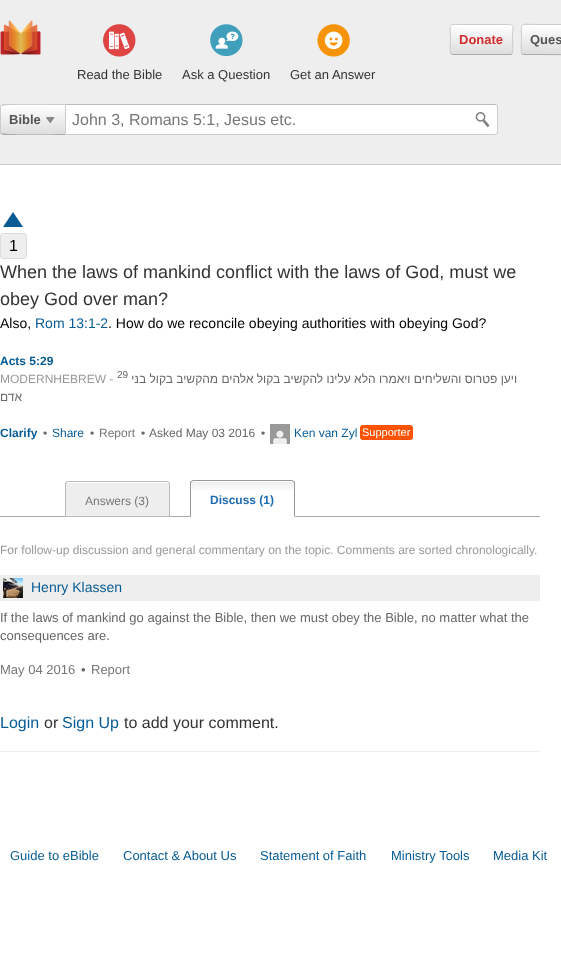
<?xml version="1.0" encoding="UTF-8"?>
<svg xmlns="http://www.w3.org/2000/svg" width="561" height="972">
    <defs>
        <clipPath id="clip1"><rect x="450" y="24" width="63" height="31" rx="3"/></clipPath>
        <linearGradient id="g1" gradientUnits="userSpaceOnUse" x1="482" y1="25" x2="482" y2="54"><stop offset="0" stop-color="#FFFFFF"/><stop offset="1" stop-color="#DEDEDE"/></linearGradient>
        <clipPath id="clip2"><rect x="521" y="24" width="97" height="31" rx="3"/></clipPath>
        <linearGradient id="g2" gradientUnits="userSpaceOnUse" x1="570" y1="-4" x2="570" y2="25"><stop offset="0" stop-color="#FFFFFF"/><stop offset="1" stop-color="#DEDEDE"/></linearGradient>
        <linearGradient id="g3" gradientUnits="userSpaceOnUse" x1="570" y1="25" x2="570" y2="54"><stop offset="0" stop-color="#FFFFFF"/><stop offset="1" stop-color="#DEDEDE"/></linearGradient>
        <clipPath id="clip3"><path d="M 3 104 H 66 V 135 H 3 C 1.5 135 0 133.5 0 132 V 107 C 0 105.5 1.5 104 3 104 Z"/></clipPath>
        <linearGradient id="g4" gradientUnits="userSpaceOnUse" x1="33" y1="76" x2="33" y2="105"><stop offset="0" stop-color="#FFFFFF"/><stop offset="1" stop-color="#DEDEDE"/></linearGradient>
        <linearGradient id="g5" gradientUnits="userSpaceOnUse" x1="33" y1="105" x2="33" y2="134"><stop offset="0" stop-color="#FFFFFF"/><stop offset="1" stop-color="#DEDEDE"/></linearGradient>
        <linearGradient id="g6" gradientUnits="userSpaceOnUse" x1="33" y1="134" x2="33" y2="163"><stop offset="0" stop-color="#FFFFFF"/><stop offset="1" stop-color="#DEDEDE"/></linearGradient>
        <clipPath id="clip4"><path d="M 193 480 H 292 C 293.5 480 295 481.5 295 483 V 517 H 190 V 483 C 190 481.5 191.5 480 193 480 Z"/></clipPath>
        <linearGradient id="g7" gradientUnits="userSpaceOnUse" x1="243" y1="516" x2="243" y2="481"><stop offset="0.7" stop-color="#FFFFFF"/><stop offset="0.96" stop-color="#EEEEEE"/><stop offset="0.97" stop-color="#FFFFFF"/></linearGradient>
    </defs>
    <rect width="100%" height="100%" fill="#FFFFFF"/>
    <rect x="0" y="0" width="561" height="164" fill="#EEEEEE"/>
    <rect x="0" y="164" width="561" height="1" fill="#CCCCCC"/>
    <image x="0" y="20" width="41" height="35" href="img_01.png"/>
    <g clip-path="url(#clip1)">
        <rect x="450" y="25" width="63" height="29" fill="url(#g1)"/>
    </g>
    <path d="M 512 54 L 510 54.5 H 453 L 451 54" fill="none" stroke="#AAAAAA"/>
    <path d="M 451 54 C 449.5 52 450.5 42 450.5 39.5 C 450.5 23 447 24.5 462.5 24.5 H 500.5 C 516 24.5 512.5 23 512.5 39.5 C 512.5 42 513.5 52 512 54" fill="none" stroke="#CCCCCC"/>
    <text x="459" y="44" font-family="Liberation Sans" font-size="13" font-weight="700" fill="#D22E2E">Donate</text>
    <g clip-path="url(#clip2)">
        <rect x="521" y="24" width="17" height="1" fill="url(#g2)"/>
        <rect x="521" y="25" width="40" height="29" fill="url(#g3)"/>
    </g>
    <path d="M 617 54 H 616.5 C 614.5 55.5 547 54.5 539 54.5 H 524 L 522 54" fill="none" stroke="#AAAAAA"/>
    <path d="M 522 54 C 520.5 52 521.5 42 521.5 39.5 C 521.5 20.5 518.5 24.5 539 24.5 H 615 C 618.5 24.5 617.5 29.5 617.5 31 V 43.5 C 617.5 46 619 52 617 54" fill="none" stroke="#CCCCCC"/>
    <text x="530" y="44" font-family="Liberation Sans" font-size="13" font-weight="700" fill="#555555">Ques</text>
    <image x="103" y="24" width="33" height="33" href="img_02.png"/>
    <text x="77" y="79" font-family="Liberation Sans" font-size="13" fill="#333333">Read the Bible</text>
    <image x="210" y="24" width="33" height="32" href="img_03.png"/>
    <text x="182" y="79" font-family="Liberation Sans" font-size="13" fill="#333333">Ask a Question</text>
    <image x="317" y="24" width="33" height="33" href="img_04.png"/>
    <text x="290" y="79" font-family="Liberation Sans" font-size="13" fill="#333333">Get an Answer</text>
    <g clip-path="url(#clip3)">
        <rect x="0" y="104" width="66" height="1" fill="url(#g4)"/>
        <rect x="0" y="105" width="65" height="29" fill="url(#g5)"/>
        <rect x="0" y="134" width="66" height="1" fill="url(#g6)"/>
    </g>
    <path d="M 3 104 L 1 105 L 2 106 C 3 104 58 105 65 105 L 66 104 Z" fill="#CCCCCC"/>
    <path d="M 66 135 L 65 134 C 58 134 3 135 2 133 L 1 134 L 3 135 Z" fill="#AAAAAA"/>
    <path d="M 0 107 V 132 C 0 133 0 134 1 134 L 1.5 133.5 L 1 132 V 107 L 1.5 105.5 L 1 105 C 0 105 0 106 0 107 Z" fill="#CCCCCC"/>
    <text x="9" y="124" font-family="Liberation Sans" font-size="13" font-weight="700" fill="#555555">Bible</text>
    <image x="46" y="117" width="9" height="6" href="img_05.png"/>
    <path d="M 65 104 H 495 C 496.5 104 498 105.5 498 107 V 132 C 498 133.5 496.5 135 495 135 H 65 Z" fill="#FFFFFF"/>
    <path d="M 65 104 L 66 105 H 495 L 496 106 L 497 105 L 495 104 Z" fill="#BBBBBB"/>
    <path d="M 498 132 V 107 C 498 106 498 105 497 105 L 496.5 105.5 L 497 107 V 132 L 496.5 133.5 L 497 134 C 498 134 498 133 498 132 Z" fill="#CCCCCC"/>
    <path d="M 495 135 L 497 134 L 496 133 L 495 134 H 66 L 65 135 Z" fill="#CCCCCC"/>
    <path d="M 65 104 V 135 L 66 134 V 105 Z" fill="#CCCCCC"/>
    <text x="72" y="125" font-family="Liberation Sans" font-size="16" fill="#777777">John 3, Romans 5:1, Jesus etc.</text>
    <image x="475" y="112" width="15" height="16" href="img_06.png"/>
    <path d="M 23 227 H 3 L 13 212 Z" fill="#075B95"/>
    <rect x="0.5" y="233.5" width="26" height="25" rx="2.5" fill="#EEEEEE" stroke="#DDDDDD"/>
    <text x="9" y="251" font-family="Liberation Sans" font-size="16" fill="#000000">1</text>
    <text font-family="Liberation Sans" font-size="18" fill="#333333">
        <tspan x="0" y="278">When the laws of mankind conflict with the laws of God, must we</tspan>
        <tspan x="0" y="305">obey God over man?</tspan>
    </text>
    <text x="0" y="328" font-family="Liberation Sans" font-size="14" fill="#000000">Also,</text>
    <text x="35" y="328" font-family="Liberation Sans" font-size="14" fill="#075B95">Rom 13:1-2</text>
    <text x="108" y="328" font-family="Liberation Sans" font-size="14" fill="#000000">. How do we reconcile obeying authorities with obeying God?</text>
    <text x="0" y="365" font-family="Liberation Sans" font-size="12" font-weight="700" fill="#075B95">Acts 5:29</text>
    <text x="0" y="383" font-family="Liberation Sans" font-size="12" fill="#999999">MODERNHEBREW -</text>
    <text x="117" y="378" font-family="Liberation Sans" font-size="10" fill="#666666">29</text>
    <text x="517" y="383" font-family="Liberation Sans" font-size="12" direction="rtl" fill="#666666">ויען פטרוס והשליחים ויאמרו הלא עלינו להקשיב בקול אלהים מהקשיב בקול בני</text>
    <text x="22" y="401" font-family="Liberation Sans" font-size="12" direction="rtl" fill="#666666">אדם׃</text>
    <text x="0" y="437" font-family="Liberation Sans" font-size="12" font-weight="700" fill="#075B95">Clarify</text>
    <text x="43" y="437" font-family="Liberation Sans" font-size="12" fill="#666666">•</text>
    <text x="52" y="437" font-family="Liberation Sans" font-size="12" fill="#075B95">Share</text>
    <text x="90" y="437" font-family="Liberation Sans" font-size="12" fill="#666666">•</text>
    <text x="99" y="437" font-family="Liberation Sans" font-size="12" fill="#777777">Report</text>
    <text x="141" y="437" font-family="Liberation Sans" font-size="12" fill="#666666">•</text>
    <text x="149" y="437" font-family="Liberation Sans" font-size="12" fill="#666666">Asked May 03 2016</text>
    <text x="261" y="437" font-family="Liberation Sans" font-size="12" fill="#666666">•</text>
    <image x="270" y="424" width="20" height="20" href="img_07.png"/>
    <text x="294" y="437" font-family="Liberation Sans" font-size="12" fill="#075B95">Ken van Zyl</text>
    <rect x="360" y="425" width="53" height="15" rx="3" fill="#FF5200"/>
    <text x="362" y="436" font-family="Liberation Sans" font-size="11" fill="#FFFFFF">Supporter</text>
    <rect x="0" y="516" width="540" height="1" fill="#AAAAAA"/>
    <rect x="65" y="483" width="105" height="33" fill="#EEEEEE"/>
    <path d="M 68 481.5 H 167 C 168.5 481.5 169.5 482.5 169.5 484 V 516.5 H 65.5 V 484 C 65.5 482.5 66.5 481.5 68 481.5 Z" fill="none" stroke="#BBBBBB"/>
    <text x="85" y="505" font-family="Liberation Sans" font-size="12" fill="#777777">Answers (3)</text>
    <g clip-path="url(#clip4)">
        <rect x="190" y="481" width="105" height="35" fill="url(#g7)"/>
    </g>
    <path d="M 193 480 L 191 481 L 192 482 L 193 481 H 292 L 293 482 L 294 481 L 292 480 Z" fill="#999999"/>
    <path d="M 295 517 V 483 C 295 482 295 481 294 481 L 293.5 481.5 L 294 483 V 516 Z" fill="#999999"/>
    <path d="M 295 517 L 294 516 H 191 L 190 517 Z" fill="#FFFFFF"/>
    <path d="M 190 517 L 191 516 V 483 L 191.5 481.5 L 191 481 C 190 481 190 482 190 483 Z" fill="#999999"/>
    <text x="210" y="504" font-family="Liberation Sans" font-size="12" font-weight="700" fill="#1E6BB2">Discuss (1)</text>
    <text x="0" y="554" font-family="Liberation Sans" font-size="12" fill="#999999">For follow-up discussion and general commentary on the topic. Comments are sorted chronologically.</text>
    <rect x="0" y="575" width="540" height="26" fill="#EEEEEE"/>
    <image x="3" y="578" width="20" height="20" href="img_08.png"/>
    <text x="31" y="592" font-family="Liberation Sans" font-size="14" fill="#075B95">Henry Klassen</text>
    <text font-family="Liberation Sans" font-size="13" fill="#666666">
        <tspan x="0" y="622">If the laws of mankind go against the Bible, then we must obey the Bible, no matter what the</tspan>
        <tspan x="0" y="640">consequences are.</tspan>
    </text>
    <text x="0" y="674" font-family="Liberation Sans" font-size="13" fill="#777777">May 04 2016</text>
    <text x="81" y="674" font-family="Liberation Sans" font-size="13" fill="#666666">•</text>
    <text x="91" y="674" font-family="Liberation Sans" font-size="13" fill="#777777">Report</text>
    <text x="0" y="728" font-family="Liberation Sans" font-size="16" fill="#075B95">Login</text>
    <text x="44" y="728" font-family="Liberation Sans" font-size="16" fill="#333333">or</text>
    <text x="62" y="728" font-family="Liberation Sans" font-size="16" fill="#075B95">Sign Up</text>
    <text x="124" y="728" font-family="Liberation Sans" font-size="16" fill="#333333">to add your comment.</text>
    <rect x="0" y="751" width="540" height="1" fill="#EEEEEE"/>
    <text x="10" y="860" font-family="Liberation Sans" font-size="13" fill="#075B95">Guide to eBible</text>
    <text x="123" y="860" font-family="Liberation Sans" font-size="13" fill="#075B95">Contact &amp; About Us</text>
    <text x="260" y="860" font-family="Liberation Sans" font-size="13" fill="#075B95">Statement of Faith</text>
    <text x="391" y="860" font-family="Liberation Sans" font-size="13" fill="#075B95">Ministry Tools</text>
    <text x="493" y="860" font-family="Liberation Sans" font-size="13" fill="#075B95">Media Kit</text>
</svg>
